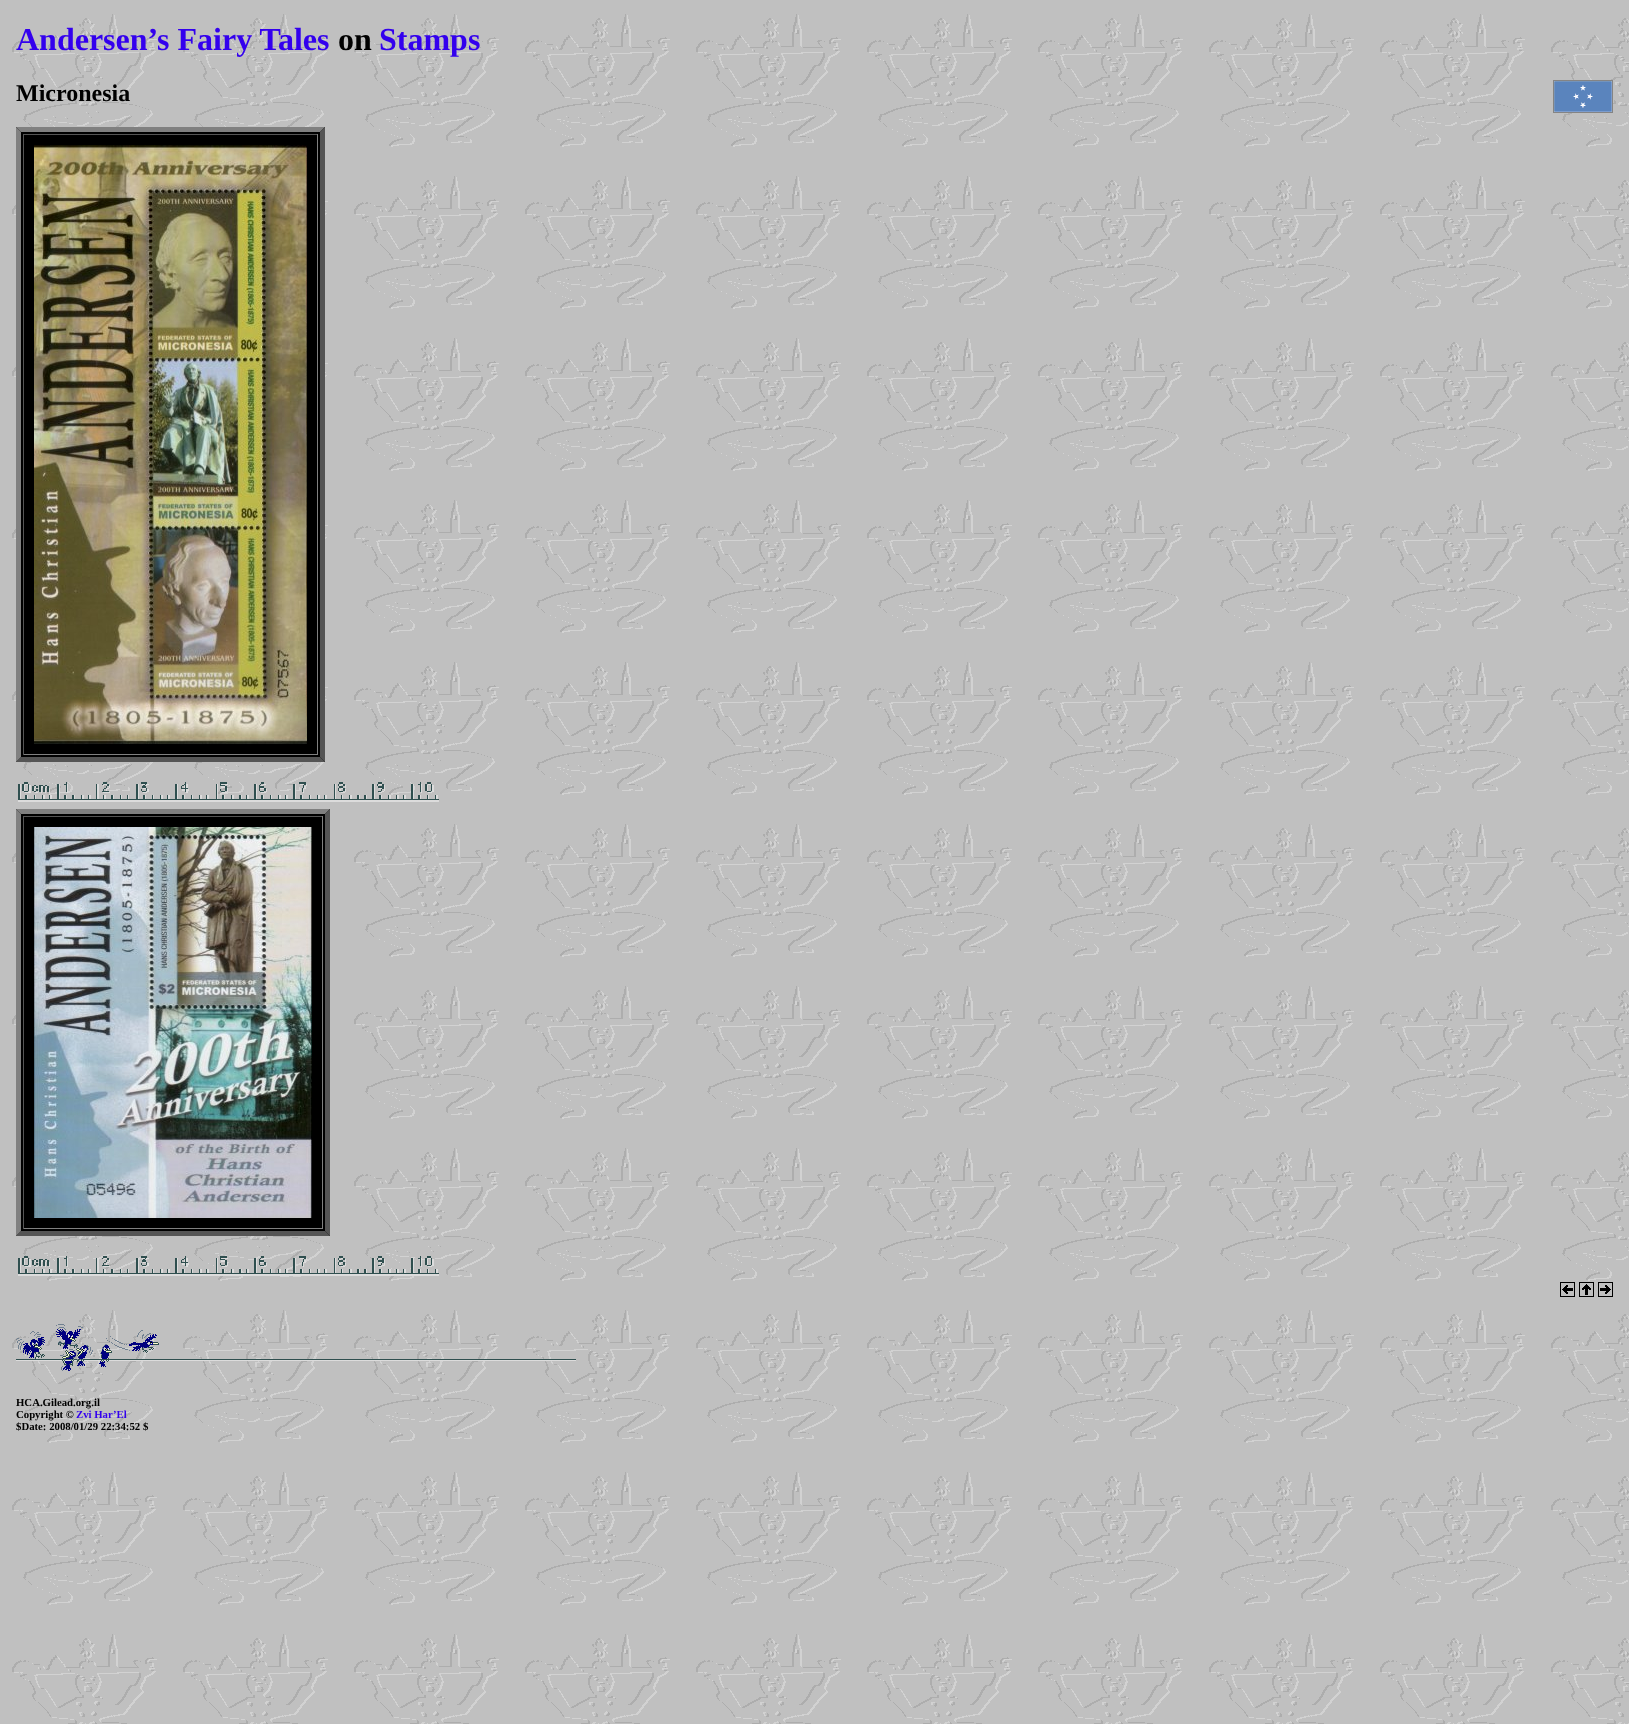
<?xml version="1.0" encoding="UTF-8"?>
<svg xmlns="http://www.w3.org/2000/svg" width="1629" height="1724">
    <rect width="100%" height="100%" fill="#C0C0C0"/>
    <image x="12" y="14" width="1617" height="1710" href="img_01.png"/>
    <text x="16" y="50" font-family="Liberation Serif" font-size="32" font-weight="700" fill="#3300EE">Andersen’s Fairy Tales</text>
    <text x="338" y="50" font-family="Liberation Serif" font-size="32" font-weight="700" fill="#000000">on</text>
    <text x="379" y="50" font-family="Liberation Serif" font-size="32" font-weight="700" fill="#3300EE">Stamps</text>
    <text x="16" y="101" font-family="Liberation Serif" font-size="24" font-weight="700" fill="#000000">Micronesia</text>
    <image x="1553" y="80" width="60" height="33" href="img_02.png"/>
    <rect x="16" y="127" width="309" height="635" fill="#000000"/>
    <path d="M 16 127 H 325 L 320 132 H 21 Z" fill="#808080"/>
    <path d="M 325 127 V 762 L 320 757 V 132 Z" fill="#555555"/>
    <path d="M 325 762 H 16 L 21 757 H 320 Z" fill="#555555"/>
    <path d="M 16 762 V 127 L 21 132 V 757 Z" fill="#808080"/>
    <rect x="23" y="134" width="295" height="1" fill="#555555"/>
    <rect x="317" y="134" width="1" height="621" fill="#808080"/>
    <rect x="23" y="754" width="295" height="1" fill="#808080"/>
    <rect x="23" y="134" width="1" height="621" fill="#555555"/>
    <image x="34" y="145" width="273" height="599" href="img_03.png"/>
    <image x="18" y="782" width="421" height="20" href="img_04.png"/>
    <rect x="16" y="809" width="314" height="427" fill="#000000"/>
    <path d="M 16 809 H 330 L 325 814 H 21 Z" fill="#808080"/>
    <path d="M 330 809 V 1236 L 325 1231 V 814 Z" fill="#555555"/>
    <path d="M 330 1236 H 16 L 21 1231 H 325 Z" fill="#555555"/>
    <path d="M 16 1236 V 809 L 21 814 V 1231 Z" fill="#808080"/>
    <rect x="23" y="816" width="300" height="1" fill="#555555"/>
    <rect x="322" y="816" width="1" height="413" fill="#808080"/>
    <rect x="23" y="1228" width="300" height="1" fill="#808080"/>
    <rect x="23" y="816" width="1" height="413" fill="#555555"/>
    <image x="34" y="827" width="278" height="391" href="img_05.png"/>
    <image x="18" y="1256" width="421" height="20" href="img_06.png"/>
    <image x="1560" y="1282" width="15" height="15" href="img_07.png"/>
    <image x="1579" y="1282" width="15" height="15" href="img_08.png"/>
    <image x="1598" y="1282" width="15" height="15" href="img_09.png"/>
    <image x="16" y="1324" width="560" height="47" href="img_10.png"/>
    <text font-family="Liberation Serif" font-size="10.75" font-weight="700" fill="#000000">
        <tspan x="16" y="1406">HCA.Gilead.org.il</tspan>
        <tspan x="16" y="1418">Copyright ©</tspan>
    </text>
    <text x="76" y="1418" font-family="Liberation Serif" font-size="10.75" font-weight="700" fill="#3300EE">Zvi Har’El</text>
    <text x="16" y="1430" font-family="Liberation Serif" font-size="10.75" font-weight="700" fill="#000000">$Date: 2008/01/29 22:34:52 $</text>
</svg>
